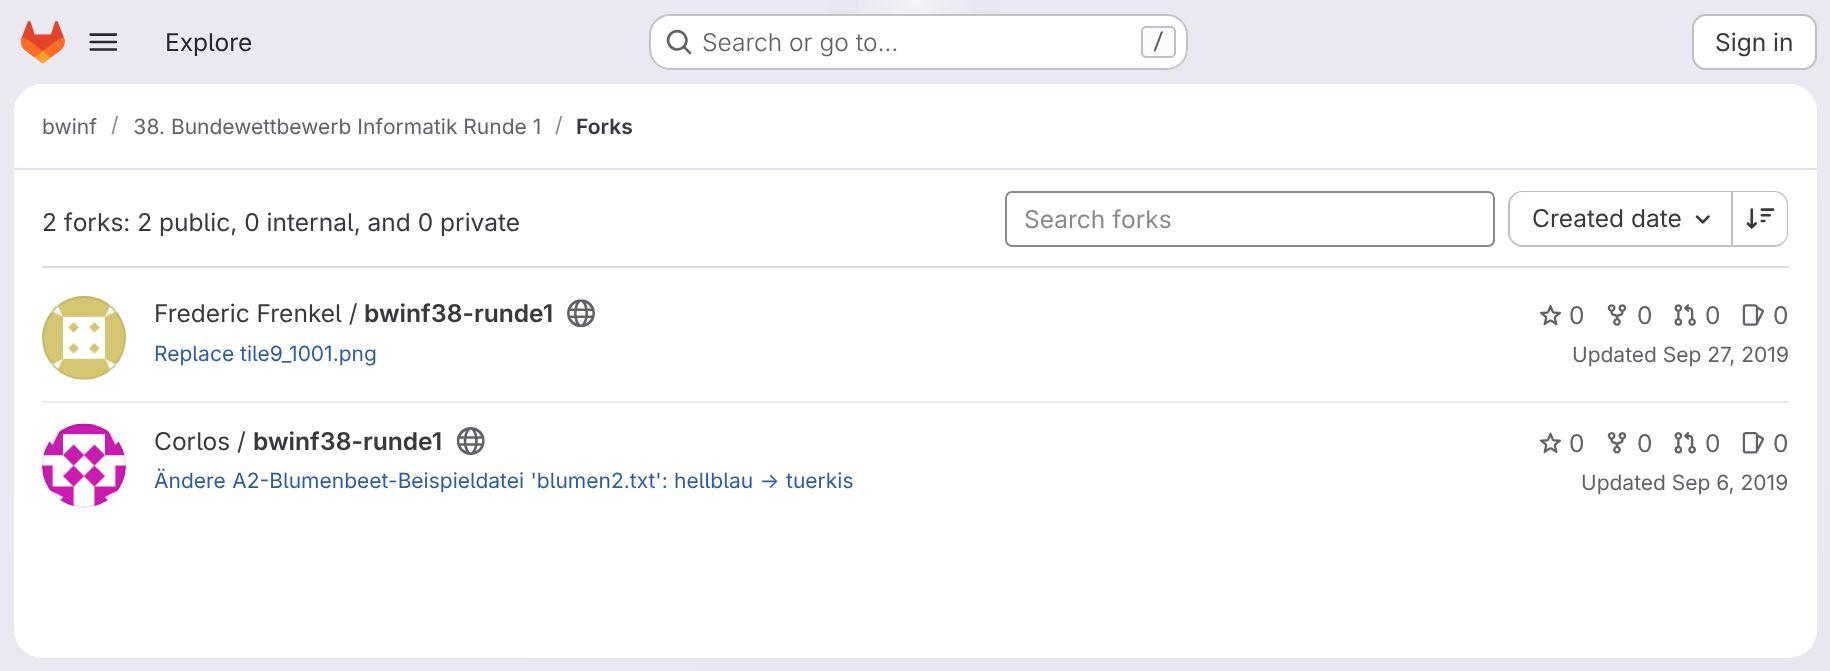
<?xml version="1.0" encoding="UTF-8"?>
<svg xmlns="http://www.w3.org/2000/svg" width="1830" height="671">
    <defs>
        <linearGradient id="g1" gradientUnits="userSpaceOnUse" x1="1000" y1="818" x2="830" y2="-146"><stop offset="0" stop-color="#E8E6F0"/><stop offset="0.7" stop-color="#EAE9F2"/></linearGradient>
        <radialGradient id="g2" gradientUnits="userSpaceOnUse" cx="0" cy="0" r="1" gradientTransform="matrix(915 0 0 672 915 0)"><stop offset="0" stop-color="#E4E2ED"/><stop offset="0.13" stop-color="#E4E2ED" stop-opacity="0"/></radialGradient>
        <radialGradient id="g3" gradientUnits="userSpaceOnUse" cx="0" cy="0" r="1" gradientTransform="matrix(915 0 0 672 915 0)"><stop offset="0" stop-color="#E4E2EC"/><stop offset="0.1" stop-color="#E4E2EC" stop-opacity="0"/></radialGradient>
        <radialGradient id="g4" gradientUnits="userSpaceOnUse" cx="915" cy="0" r="1135"><stop offset="0" stop-color="#FFFFFF" stop-opacity="0.6"/><stop offset="0.06" stop-color="#FFFFFF" stop-opacity="0"/></radialGradient>
    </defs>
    <rect width="100%" height="100%" fill="#FFFFFF"/>
    <rect x="0" y="0" width="1830" height="671" fill="url(#g1)"/>
    <rect x="829" y="0" width="172" height="63" fill="url(#g2)"/>
    <rect x="872" y="1" width="86" height="13" fill="url(#g3)"/>
    <rect x="858" y="0" width="114" height="14" fill="url(#g4)"/>
    <image x="21" y="21" width="44" height="42" href="img_01.png"/>
    <image x="89" y="33" width="29" height="18" href="img_02.png"/>
    <text x="165" y="51" font-family="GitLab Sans" font-size="24.5" fill="#28272D">Explore</text>
    <rect x="649" y="14" width="539" height="56" rx="21" fill="#FFFFFF"/>
    <rect x="650" y="15" width="537" height="54" rx="20" fill="none" stroke="#050506" stroke-opacity="0.24" stroke-width="2"/>
    <image x="666" y="29" width="26" height="26" href="img_03.png"/>
    <text x="702" y="51" font-family="GitLab Sans" font-size="24.5" font-weight="300" fill="#626168">Search or go to…</text>
    <rect x="1142" y="27" width="33" height="30" rx="4" fill="#FBFAFD" stroke="#BFBFC3" stroke-width="2"/>
    <text x="1152" y="49" font-family="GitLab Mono" font-size="21" font-weight="500" fill="#626168">/</text>
    <rect x="1693" y="15" width="123" height="54" rx="13" fill="#FFFFFF" stroke="#BFBFC3" stroke-width="2"/>
    <text x="1715" y="51" font-family="GitLab Sans" font-size="24.5" fill="#3A383F">Sign in</text>
    <rect x="14" y="84" width="1803" height="574" rx="28" fill="#FFFFFF"/>
    <path d="M 42 84 H 1789 C 1804.5 84 1817 96.5 1817 112 V 170 H 14 V 112 C 14 96.5 26.5 84 42 84 Z" fill="#FFFFFF"/>
    <rect x="14" y="168" width="1803" height="2" fill="#E1DFEC"/>
    <text x="42" y="134" font-family="GitLab Sans" font-size="21" fill="#626168">bwinf</text>
    <text x="111" y="132" font-family="GitLab Sans" font-size="21" fill="#89888D">/</text>
    <text x="133" y="134" font-family="GitLab Sans" font-size="21" fill="#626168">38. Bundewettbewerb Informatik Runde 1</text>
    <text x="555" y="132" font-family="GitLab Sans" font-size="21" fill="#89888D">/</text>
    <text x="576" y="134" font-family="GitLab Sans" font-size="21" font-weight="600" fill="#3A383F">Forks</text>
    <rect x="42" y="266" width="1747" height="2" fill="#DCDCDE"/>
    <text x="42" y="231" font-family="GitLab Sans" font-size="24.5" fill="#3A383F">2 forks: 2 public, 0 internal, and 0 private</text>
    <rect x="1006" y="192" width="488" height="54" rx="6" fill="none" stroke="#89888D" stroke-width="2"/>
    <text x="1024" y="228" font-family="GitLab Sans" font-size="24.5" fill="#89888D">Search forks</text>
    <path d="M 1522 191 H 1731 V 247 H 1522 C 1515 247 1508 240 1508 233 V 205 C 1508 197 1515 191 1522 191 Z M 1522 192 H 1731 V 245 H 1522 C 1516 245 1510 240 1510 233 V 205 C 1510 198 1516 192 1522 192 Z" fill="#BFBFC3" fill-rule="evenodd"/>
    <text x="1532" y="227" font-family="GitLab Sans" font-size="24.5" fill="#3A383F">Created date</text>
    <image x="1695" y="215" width="15" height="9" href="img_04.png"/>
    <path d="M 1732 191 H 1774 C 1782 191 1788 197 1788 205 V 233 C 1788 240 1782 247 1774 247 H 1732 Z M 1732 192 H 1774 C 1781 192 1787 198 1787 205 V 233 C 1787 240 1781 245 1774 245 H 1732 Z" fill="#BFBFC3" fill-rule="evenodd"/>
    <rect x="1731" y="191" width="2" height="56" fill="#BFBFC3"/>
    <image x="1746" y="208" width="29" height="22" href="img_05.png"/>
    <rect x="42" y="401" width="1747" height="2" fill="#ECECEF"/>
    <image x="42" y="295" width="84" height="85" href="img_06.png"/>
    <circle cx="84" cy="338" r="41" fill="none" stroke="#050506" stroke-opacity="0.08" stroke-width="2"/>
    <text x="154" y="322" font-family="GitLab Sans" font-size="24.5" fill="#3A383F">Frederic Frenkel /</text>
    <text x="364" y="322" font-family="GitLab Sans" font-size="24.5" font-weight="600" fill="#3A383F">bwinf38-runde1</text>
    <image x="567" y="299" width="28" height="29" href="img_07.png"/>
    <text x="154" y="361" font-family="GitLab Sans" font-size="21" fill="#2F5CA0">Replace tile9_1001.png</text>
    <image x="1539" y="304" width="23" height="22" href="img_08.png"/>
    <text x="1569" y="324" font-family="GitLab Sans" font-size="24.5" fill="#626168">0</text>
    <image x="1607" y="304" width="20" height="22" href="img_09.png"/>
    <text x="1637" y="324" font-family="GitLab Sans" font-size="24.5" fill="#626168">0</text>
    <image x="1674" y="304" width="22" height="22" href="img_10.png"/>
    <text x="1705" y="324" font-family="GitLab Sans" font-size="24.5" fill="#626168">0</text>
    <image x="1742" y="304" width="22" height="22" href="img_11.png"/>
    <text x="1773" y="324" font-family="GitLab Sans" font-size="24.5" fill="#626168">0</text>
    <text x="1572" y="362" font-family="GitLab Sans" font-size="21" fill="#626168">Updated Sep 27, 2019</text>
    <image x="42" y="423" width="84" height="83" href="img_12.png"/>
    <circle cx="84" cy="466" r="41" fill="none" stroke="#050506" stroke-opacity="0.08" stroke-width="2"/>
    <text x="154" y="450" font-family="GitLab Sans" font-size="24.5" fill="#3A383F">Corlos /</text>
    <text x="253" y="450" font-family="GitLab Sans" font-size="24.5" font-weight="600" fill="#3A383F">bwinf38-runde1</text>
    <image x="456" y="427" width="29" height="28" href="img_13.png"/>
    <text x="154" y="488" word-spacing="0.5" font-family="GitLab Sans" font-size="21" fill="#2F5CA0">Ändere A2-Blumenbeet-Beispieldatei 'blumen2.txt': hellblau -&gt; tuerkis</text>
    <image x="1539" y="432" width="23" height="21" href="img_14.png"/>
    <text x="1569" y="452" font-family="GitLab Sans" font-size="24.5" fill="#626168">0</text>
    <image x="1607" y="432" width="20" height="22" href="img_15.png"/>
    <text x="1637" y="452" font-family="GitLab Sans" font-size="24.5" fill="#626168">0</text>
    <image x="1674" y="432" width="22" height="22" href="img_16.png"/>
    <text x="1705" y="452" font-family="GitLab Sans" font-size="24.5" fill="#626168">0</text>
    <image x="1742" y="432" width="22" height="22" href="img_17.png"/>
    <text x="1773" y="452" font-family="GitLab Sans" font-size="24.5" fill="#626168">0</text>
    <text x="1581" y="490" font-family="GitLab Sans" font-size="21" fill="#626168">Updated Sep 6, 2019</text>
</svg>
